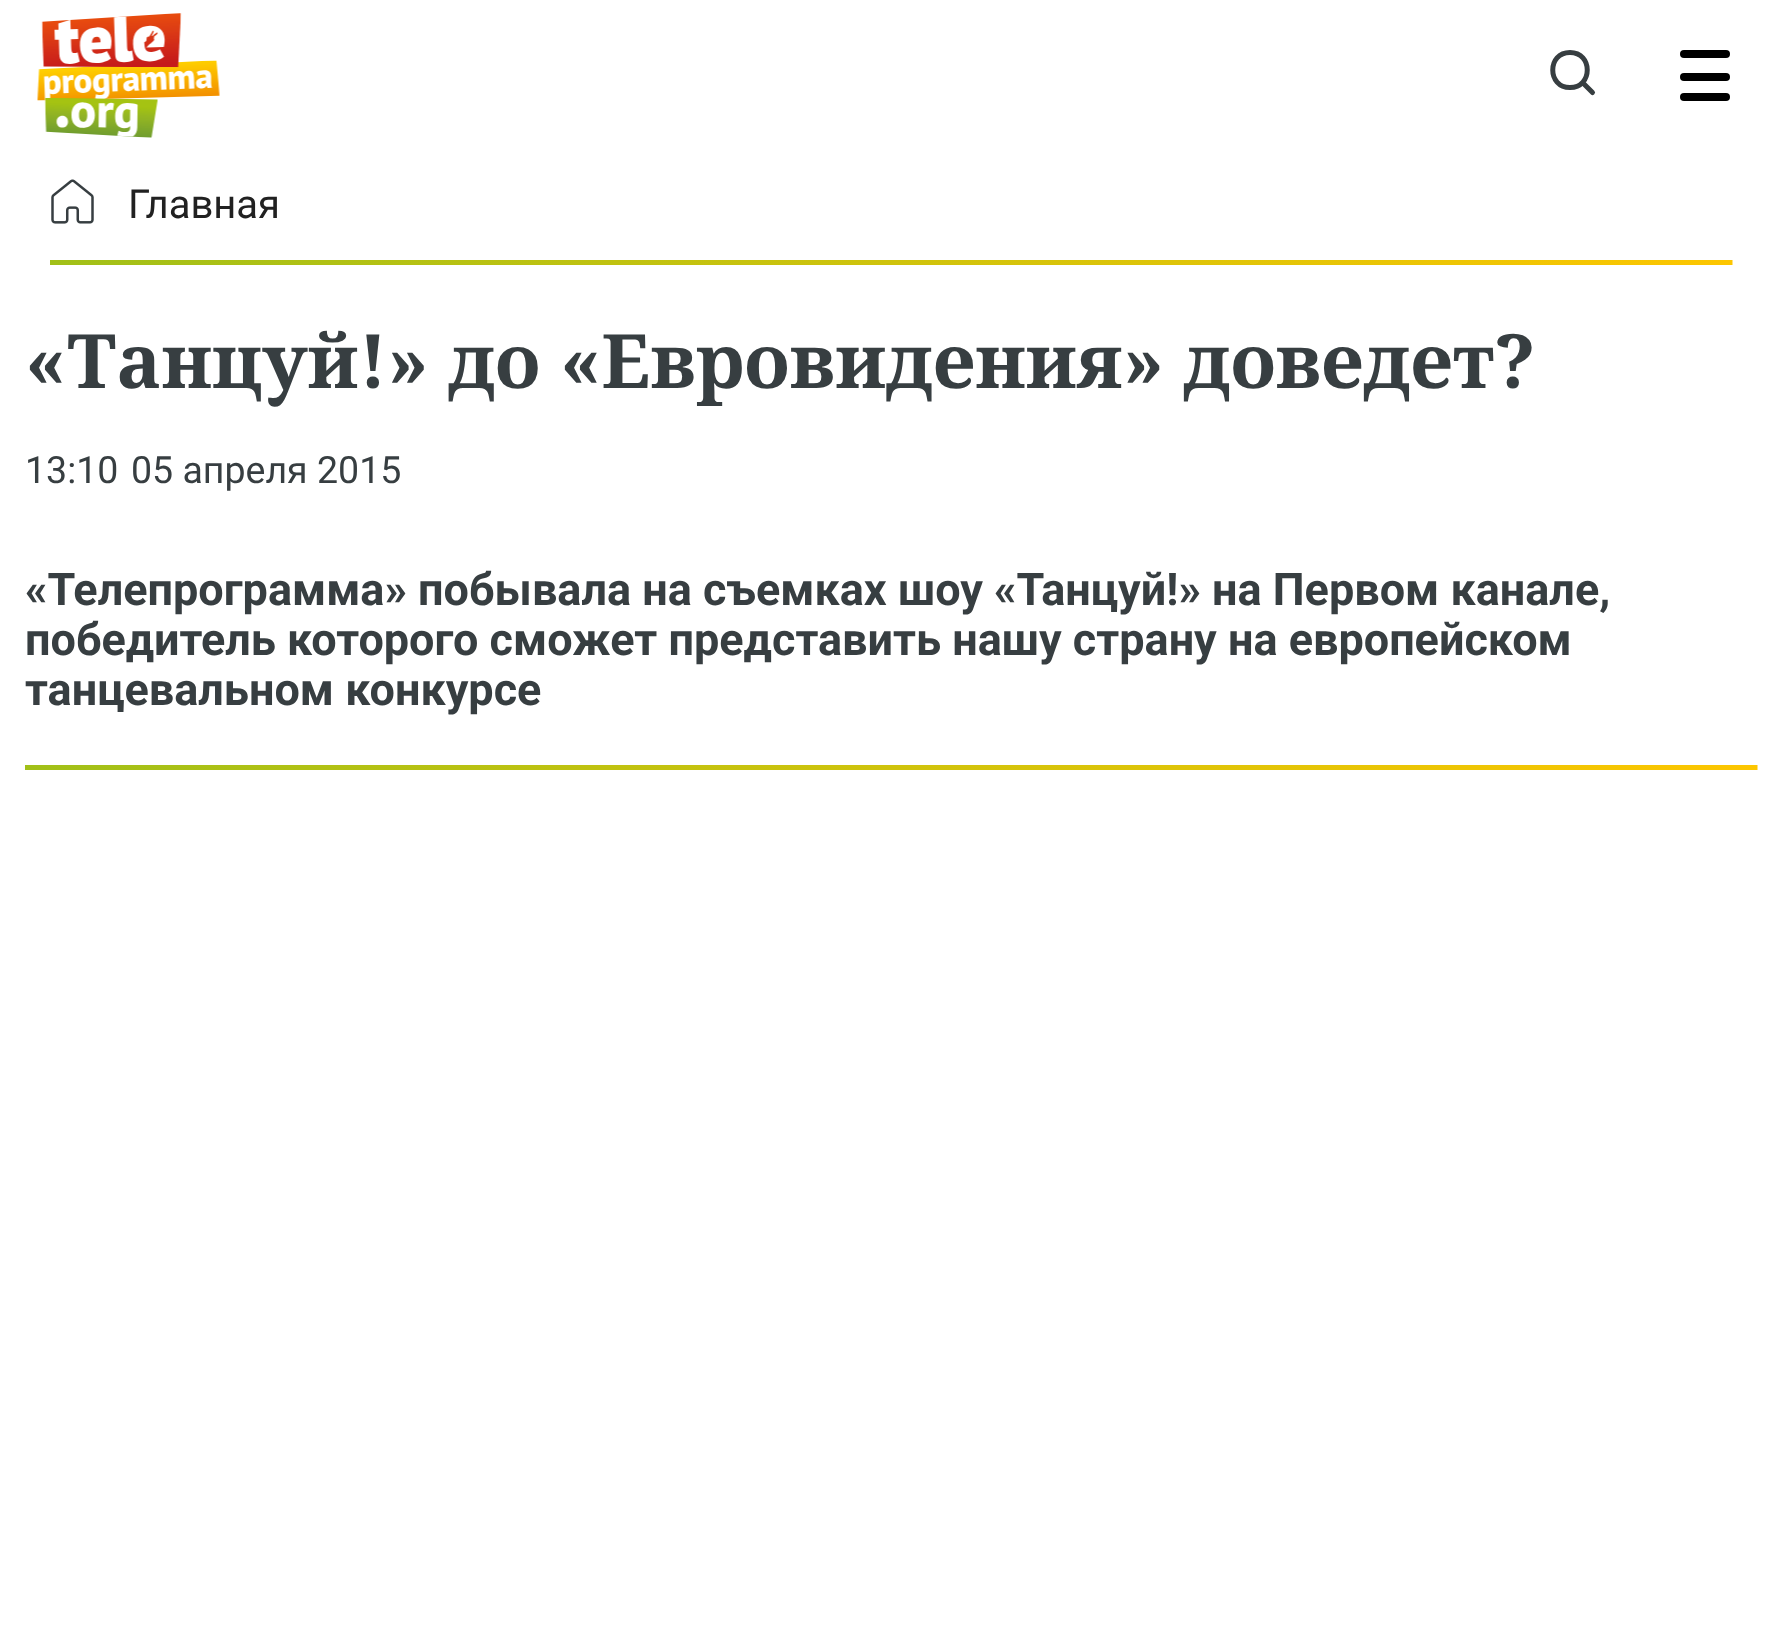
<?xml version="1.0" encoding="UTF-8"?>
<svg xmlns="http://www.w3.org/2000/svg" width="1781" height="1638">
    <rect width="100%" height="100%" fill="#FFFFFF"/>
    <image x="37" y="13" width="183" height="125" href="img_01.png"/>
    <path d="M 1570 87.5 C 1593 87.5 1593 52.5 1570 52.5 C 1547 52.5 1547 87.5 1570 87.5 M 1592.5 92.5 L 1582.5 82.5" fill="none" stroke="#373E41" stroke-width="5" stroke-linecap="round" stroke-linejoin="round"/>
    <rect x="1680" y="50" width="50" height="8" rx="4" fill="#000000"/>
    <rect x="1680" y="73" width="50" height="8" rx="4" fill="#000000"/>
    <rect x="1680" y="93" width="50" height="8" rx="4" fill="#000000"/>
    <image x="51" y="179" width="43" height="45" href="img_02.png"/>
    <image x="50" y="260" width="1683" height="5" href="img_03.png"/>
    <text x="128" y="218" font-family="Roboto" font-size="40" fill="#212121">Главная</text>
    <text x="25" y="388" font-family="Noto Serif" font-size="75" font-weight="700" fill="#373E41">«Танцуй!» до «Евровидения» доведет?</text>
    <text x="25" y="483" font-family="Roboto" font-size="37.5" fill="#373E41">13:10</text>
    <text x="131" y="483" font-family="Roboto" font-size="37.5" fill="#373E41">05 апреля 2015</text>
    <image x="25" y="765" width="1733" height="5" href="img_04.png"/>
    <text font-family="Roboto" font-size="45" font-weight="700" fill="#373E41">
        <tspan x="25" y="605">«Телепрограмма» побывала на съемках шоу «Танцуй!» на Первом канале,</tspan>
        <tspan x="25" y="655">победитель которого сможет представить нашу страну на европейском</tspan>
        <tspan x="25" y="705">танцевальном конкурсе</tspan>
    </text>
</svg>
